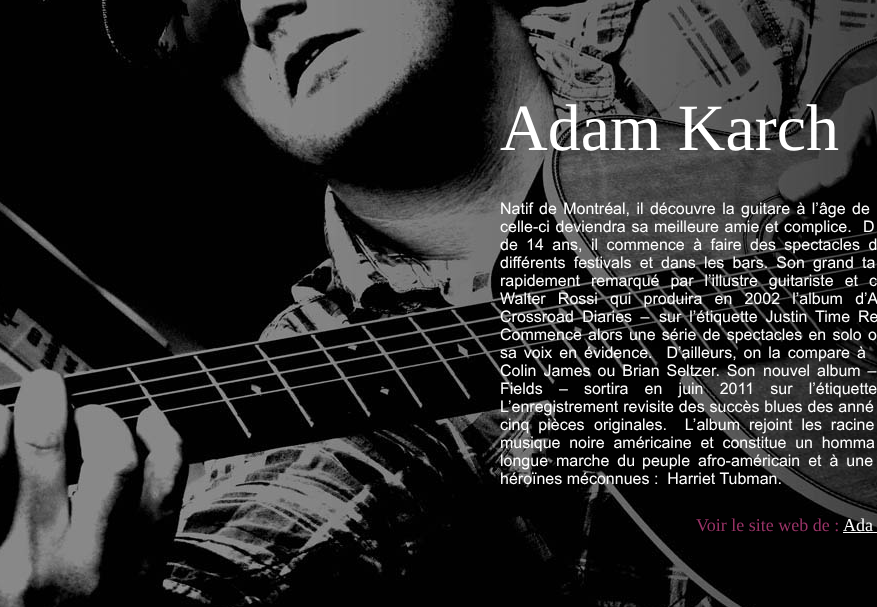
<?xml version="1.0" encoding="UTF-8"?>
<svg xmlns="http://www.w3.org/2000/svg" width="877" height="607">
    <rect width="100%" height="100%" fill="#FFFFFF"/>
    <image x="0" y="0" width="877" height="607" href="img_01.png"/>
    <text x="500" y="150" font-family="Liberation Serif" font-size="66" fill="#FFFFFF">Adam Karch</text>
    <text x="500" y="214" font-family="Arial" font-size="16" fill="#FFFFFF">Natif</text>
    <text x="539" y="214" word-spacing="2" font-family="Arial" font-size="16" fill="#FFFFFF">de Montréal, il découvre la guitare à l’âge de</text>
    <text x="500" y="232" word-spacing="1.25" font-family="Arial" font-size="16" fill="#FFFFFF">celle-ci deviendra sa</text>
    <text x="654" y="232" word-spacing="1.25" font-family="Arial" font-size="16" fill="#FFFFFF" xml:space="preserve">meilleure amie et complice.  D</text>
    <text x="500" y="250" font-family="Arial" font-size="16" fill="#FFFFFF">de</text>
    <text x="526" y="250" word-spacing="4" font-family="Arial" font-size="16" fill="#FFFFFF">14 ans, il commence à faire des spectacles d</text>
    <text x="500" y="268" word-spacing="3.75" font-family="Arial" font-size="16" fill="#FFFFFF">différents festivals et</text>
    <text x="661" y="268" word-spacing="3.75" font-family="Arial" font-size="16" fill="#FFFFFF">dans les bars. Son grand ta</text>
    <text x="500" y="286" word-spacing="6.5" font-family="Arial" font-size="16" fill="#FFFFFF">rapidement remarqué par l’illustre guitariste et</text>
    <text x="869" y="286" font-family="Arial" font-size="16" fill="#FFFFFF">c</text>
    <text font-family="Arial" font-size="16" fill="#FFFFFF">
        <tspan x="500" y="304" word-spacing="7.75">Walter Rossi qui produira en 2002 l’album d’A</tspan>
        <tspan x="500" y="322" word-spacing="4">Crossroad Diaries –</tspan>
    </text>
    <text x="659" y="322" word-spacing="3.5" font-family="Arial" font-size="16" fill="#FFFFFF">sur l’étiquette Justin Time Re</text>
    <text font-family="Arial" font-size="16" fill="#FFFFFF">
        <tspan x="500" y="340" word-spacing="1.75">Commence alors une série de spectacles en solo o</tspan>
        <tspan x="500" y="358" word-spacing="2.5">sa voix en</tspan>
    </text>
    <text x="584" y="358" word-spacing="2.5" font-family="Arial" font-size="16" fill="#FFFFFF" xml:space="preserve">évidence.  D’ailleurs, on la compare à</text>
    <text x="500" y="376" word-spacing="2.5" font-family="Arial" font-size="16" fill="#FFFFFF">Colin James ou Brian Seltzer. Son</text>
    <text x="763" y="376" word-spacing="2.5" font-family="Arial" font-size="16" fill="#FFFFFF">nouvel album –</text>
    <text font-family="Arial" font-size="16" fill="#FFFFFF">
        <tspan x="500" y="394" word-spacing="11.75">Fields – sortira en juin 2011 sur l’étiquette</tspan>
        <tspan x="500" y="412" word-spacing="0.5">L’enregistrement revisite des succès blues des anné</tspan>
        <tspan x="500" y="430" word-spacing="4.5">cinq pièces</tspan>
    </text>
    <text x="594" y="430" word-spacing="4.5" font-family="Arial" font-size="16" fill="#FFFFFF" xml:space="preserve">originales.  L’album rejoint les racine</text>
    <text font-family="Arial" font-size="16" fill="#FFFFFF">
        <tspan x="500" y="448" word-spacing="4.25">musique noire américaine et constitue un homma</tspan>
        <tspan x="500" y="466" word-spacing="3.5">longue marche du</tspan>
    </text>
    <text x="642" y="466" word-spacing="3.5" font-family="Arial" font-size="16" fill="#FFFFFF">peuple afro-américain et à une</text>
    <text x="500" y="484" font-family="Arial" font-size="16" fill="#FFFFFF" xml:space="preserve">héroïnes méconnues :  Harriet Tubman.</text>
    <text x="696" y="531" font-family="Liberation Serif" font-size="18" fill="#993366">Voir le site web de :</text>
    <text x="843" y="531" font-family="Liberation Serif" font-size="18" fill="#FFFFFF">Ada</text>
    <rect x="843" y="532" width="34" height="1" fill="#FFFFFF"/>
</svg>
